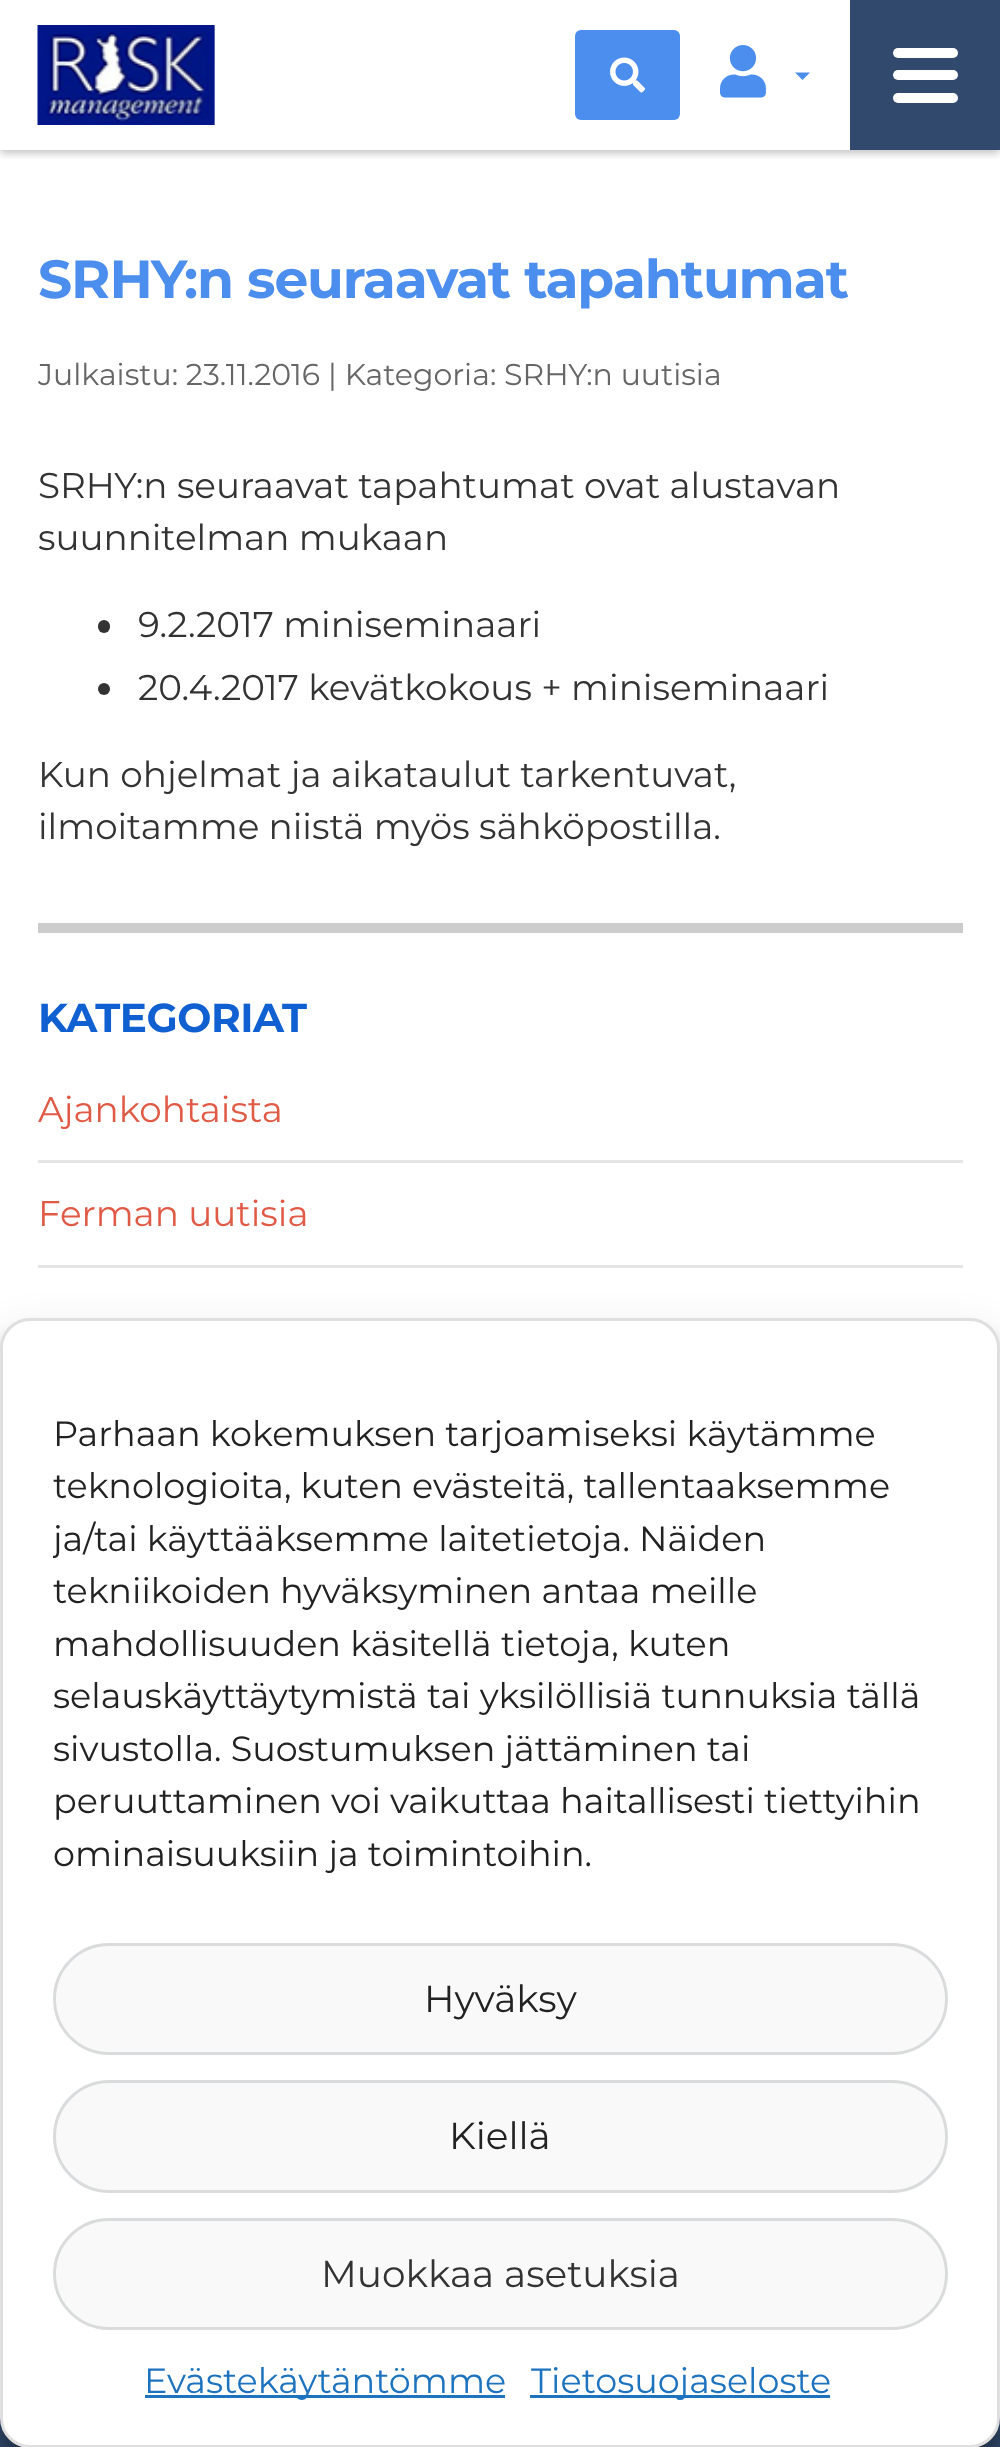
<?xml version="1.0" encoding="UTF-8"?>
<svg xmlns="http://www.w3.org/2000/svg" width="1000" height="2447">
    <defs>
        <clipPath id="clip1"><rect x="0" y="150" width="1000" height="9"/></clipPath>
        <filter id="blur1" x="-50%" y="-200%" width="200%" height="500%"><feGaussianBlur stdDeviation="4"/></filter>
        <filter id="blur2" x="-50%" y="-200%" width="200%" height="500%"><feGaussianBlur stdDeviation="7.5"/></filter>
        <filter id="blur3" x="-50%" y="-200%" width="200%" height="500%"><feGaussianBlur stdDeviation="25"/></filter>
        <clipPath id="clip2"><rect x="53" y="1408" width="895" height="485"/></clipPath>
    </defs>
    <rect width="100%" height="100%" fill="#FFFFFF"/>
    <g clip-path="url(#clip1)">
        <rect x="0" y="3" width="1000" height="150" fill="#000000" fill-opacity="0.25" filter="url(#blur1)"/>
    </g>
    <image x="37" y="25" width="178" height="100" href="img_01.png"/>
    <rect x="575" y="30" width="105" height="90" rx="6" fill="#4C8EEE"/>
    <image x="610" y="57" width="35" height="36" href="img_02.png"/>
    <image x="720" y="45" width="46" height="53" href="img_03.png"/>
    <path d="M 795 72.5 H 810 L 802.5 80 Z" fill="#4C8EEE"/>
    <rect x="850" y="0" width="150" height="150" fill="#31496D"/>
    <rect x="893" y="70" width="65" height="10" rx="5" fill="#FFFFFF"/>
    <rect x="893" y="48" width="65" height="10" rx="5" fill="#FFFFFF"/>
    <rect x="893" y="93" width="65" height="10" rx="5" fill="#FFFFFF"/>
    <text x="38" y="298" font-family="Montserrat" font-size="53.6" font-weight="700" letter-spacing="-1.1" fill="#4C8EEE">SRHY:n seuraavat tapahtumat</text>
    <text x="38" y="385" font-family="Montserrat" font-size="30" fill="#666666">Julkaistu: 23.11.2016 | Kategoria: SRHY:n uutisia</text>
    <text font-family="Montserrat" font-size="35.75" fill="#333333">
        <tspan x="38" y="498">SRHY:n seuraavat tapahtumat ovat alustavan</tspan>
        <tspan x="38" y="550">suunnitelman mukaan</tspan>
    </text>
    <rect x="98" y="620" width="12" height="13" rx="6" fill="#333333"/>
    <text x="138" y="637" font-family="Montserrat" font-size="35.75" fill="#333333">9.2.2017 miniseminaari</text>
    <circle cx="104" cy="689" r="6" fill="#333333"/>
    <text x="138" y="700" font-family="Montserrat" font-size="35.75" fill="#333333">20.4.2017 kevätkokous + miniseminaari</text>
    <text font-family="Montserrat" font-size="35.75" fill="#333333">
        <tspan x="38" y="787">Kun ohjelmat ja aikataulut tarkentuvat,</tspan>
        <tspan x="38" y="839">ilmoitamme niistä myös sähköpostilla.</tspan>
    </text>
    <rect x="38" y="923" width="925" height="10" fill="#CCCCCC"/>
    <text x="38" y="1032" font-family="Montserrat" font-size="40.5" font-weight="700" letter-spacing="-0.5" fill="#1160D2">KATEGORIAT</text>
    <rect x="38" y="1160" width="925" height="3" fill="#E5E5E5"/>
    <text x="38" y="1122" font-family="Montserrat" font-size="35.75" fill="#E05A46">Ajankohtaista</text>
    <rect x="38" y="1265" width="925" height="3" fill="#E5E5E5"/>
    <text x="38" y="1226" font-family="Montserrat" font-size="35.75" fill="#E05A46">Ferman uutisia</text>
    <rect x="0" y="2418" width="1000" height="29" fill="#31496D"/>
    <rect x="0" y="1333" width="1000" height="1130" rx="30" fill="#000000" fill-opacity="0.23" filter="url(#blur2)"/>
    <rect x="0" y="1343" width="1000" height="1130" rx="30" fill="#000000" fill-opacity="0.19" filter="url(#blur3)"/>
    <rect x="1.5" y="1319.5" width="997" height="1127" rx="28.5" fill="#FFFFFF" stroke="#E0DFDF" stroke-width="3"/>
    <text font-family="Montserrat" font-size="35" fill="#222222">
        <tspan x="53" y="1446">Parhaan kokemuksen tarjoamiseksi käytämme</tspan>
        <tspan x="53" y="1498">teknologioita, kuten evästeitä, tallentaaksemme</tspan>
    </text>
    <g clip-path="url(#clip2)">
        <text x="53" y="1551" font-family="Montserrat" font-size="35" fill="#222222">ja/tai käyttääksemme laitetietoja. Näiden</text>
    </g>
    <text font-family="Montserrat" font-size="35" fill="#222222">
        <tspan x="53" y="1603">tekniikoiden hyväksyminen antaa meille</tspan>
        <tspan x="53" y="1656">mahdollisuuden käsitellä tietoja, kuten</tspan>
        <tspan x="53" y="1708">selauskäyttäytymistä tai yksilöllisiä tunnuksia tällä</tspan>
        <tspan x="53" y="1761">sivustolla. Suostumuksen jättäminen tai</tspan>
        <tspan x="53" y="1813">peruuttaminen voi vaikuttaa haitallisesti tiettyihin</tspan>
        <tspan x="53" y="1866">ominaisuuksiin ja toimintoihin.</tspan>
    </text>
    <rect x="54.5" y="1944.5" width="892" height="109" rx="54.5" fill="#F9F9F9" stroke="#DADBDC" stroke-width="3"/>
    <text x="424" y="2012" font-family="Montserrat" font-size="37.5" fill="#222222">Hyväksy</text>
    <rect x="54.5" y="2081.5" width="892" height="110" rx="55" fill="#F9F9F9" stroke="#DADBDC" stroke-width="3"/>
    <text x="449" y="2149" font-family="Montserrat" font-size="37.5" fill="#222222">Kiellä</text>
    <rect x="54.5" y="2219.5" width="892" height="109" rx="54.5" fill="#F9F9F9" stroke="#DADBDC" stroke-width="3"/>
    <text x="321" y="2287" font-family="Montserrat" font-size="37.5" fill="#333333">Muokkaa asetuksia</text>
    <rect x="145" y="2395" width="360" height="3" fill="#1E73BE"/>
    <text x="144" y="2393" font-family="Montserrat" font-size="35" fill="#1E73BE">Evästekäytäntömme</text>
    <rect x="530" y="2395" width="300" height="3" fill="#1E73BE"/>
    <text x="531" y="2393" font-family="Montserrat" font-size="35" fill="#1E73BE">Tietosuojaseloste</text>
</svg>
